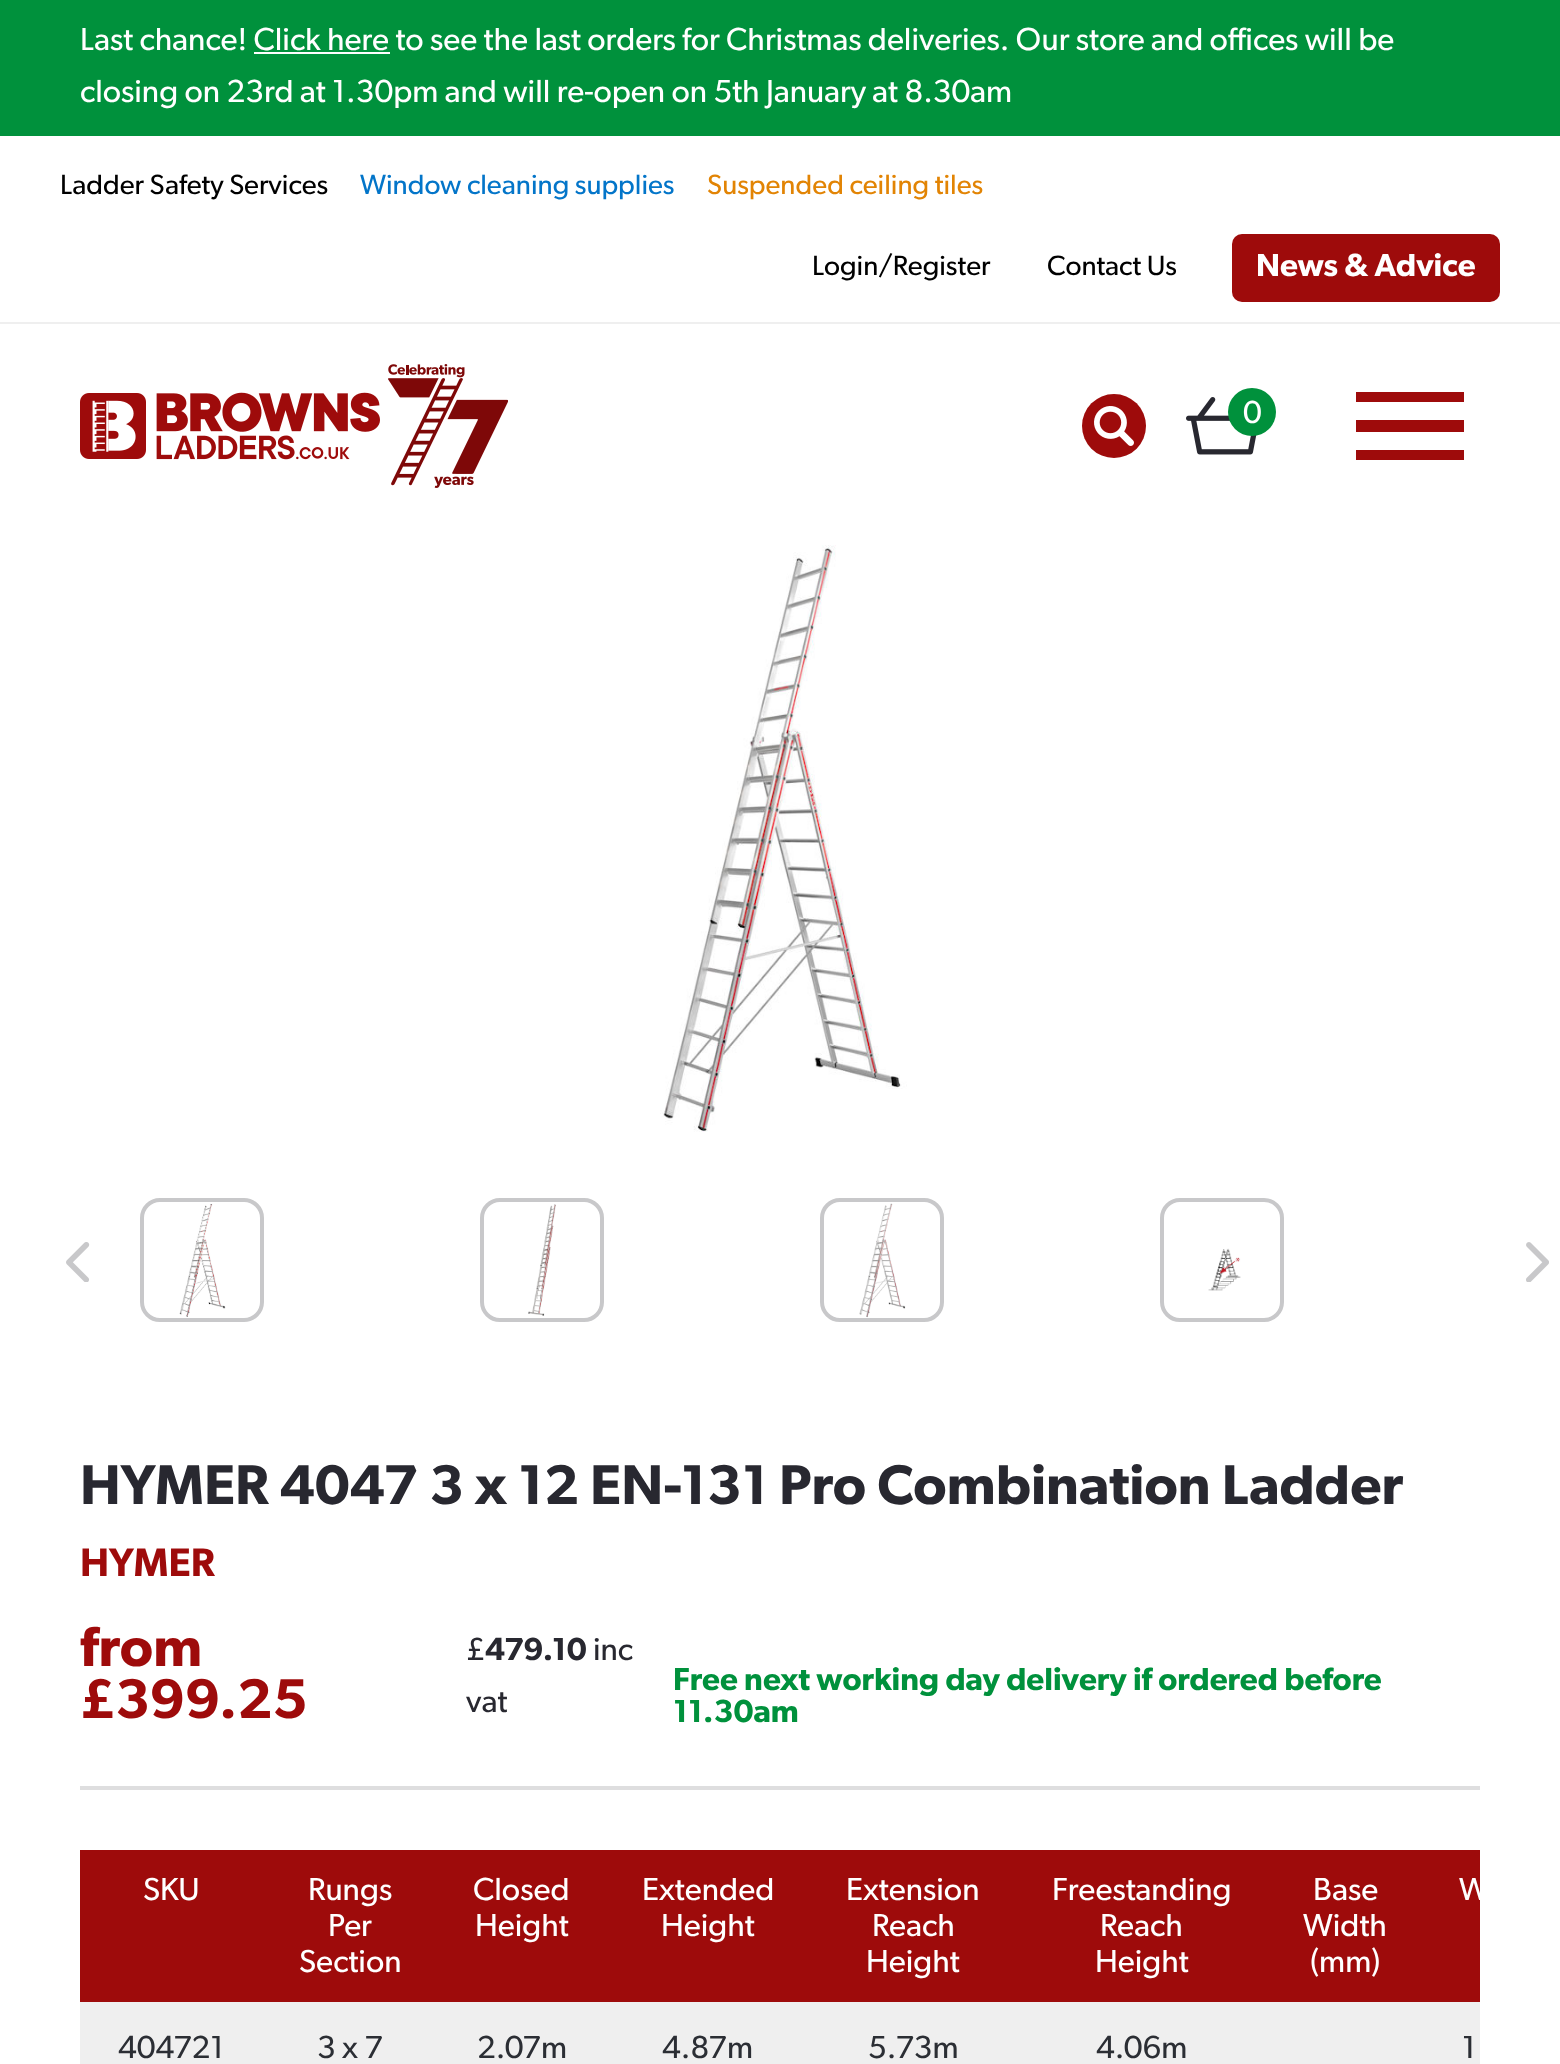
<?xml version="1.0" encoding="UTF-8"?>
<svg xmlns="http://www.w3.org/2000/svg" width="1560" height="2064">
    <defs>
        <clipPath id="clip1"><rect x="80" y="1454" width="1400" height="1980"/></clipPath>
    </defs>
    <rect width="100%" height="100%" fill="#FFFFFF"/>
    <rect x="0" y="0" width="1560" height="136" fill="#00913C"/>
    <text x="80" y="50" font-family="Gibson" font-size="32" fill="#FFFFFF">Last chance! Click here to see the last orders for Christmas deliveries. Our store and offices will be</text>
    <rect x="254" y="52" width="136" height="2" fill="#FFFFFF"/>
    <text x="80" y="102" font-family="Gibson" font-size="32" fill="#FFFFFF">closing on 23rd at 1.30pm and will re-open on 5th January at 8.30am</text>
    <rect x="0" y="322" width="1560" height="2" fill="#EFEFEF"/>
    <text x="60" y="194" font-family="Gibson" font-size="28" fill="#000000">Ladder Safety Services</text>
    <text x="360" y="194" font-family="Gibson" font-size="28" fill="#0375C9">Window cleaning supplies</text>
    <text x="707" y="194" font-family="Gibson" font-size="28" fill="#E28404">Suspended ceiling tiles</text>
    <text x="812" y="275" font-family="Gibson" font-size="28" fill="#000000">Login/Register</text>
    <text x="1047" y="275" font-family="Gibson" font-size="28" fill="#000000">Contact Us</text>
    <rect x="1232" y="234" width="268" height="68" rx="10" fill="#9E0B0B"/>
    <text x="1256" y="276" font-family="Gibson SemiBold" font-size="32" font-weight="600" fill="#FFFFFF">News &amp; Advice</text>
    <image x="80" y="392" width="300" height="68" href="img_01.png"/>
    <image x="388" y="364" width="120" height="124" href="img_02.png"/>
    <circle cx="1114" cy="426" r="32" fill="#9E0B0B"/>
    <image x="1094" y="406" width="40" height="40" href="img_03.png"/>
    <image x="1186" y="397" width="71" height="58" href="img_04.png"/>
    <circle cx="1252" cy="412" r="24" fill="#00913C"/>
    <text x="1243" y="423" font-family="Gibson" font-size="32" fill="#FFFFFF">0</text>
    <rect x="1356" y="392" width="108" height="10" fill="#9E0B0B"/>
    <rect x="1356" y="420" width="108" height="12" fill="#9E0B0B"/>
    <rect x="1356" y="450" width="108" height="10" fill="#9E0B0B"/>
    <image x="660" y="545" width="247" height="587" href="img_05.png"/>
    <rect x="142" y="1200" width="120" height="120" rx="18" fill="none" stroke="#C8C8CA" stroke-width="4"/>
    <image x="179" y="1204" width="47" height="113" href="img_06.png"/>
    <rect x="482" y="1200" width="120" height="120" rx="18" fill="none" stroke="#C8C8CA" stroke-width="4"/>
    <image x="528" y="1204" width="28" height="112" href="img_07.png"/>
    <rect x="822" y="1200" width="120" height="120" rx="18" fill="none" stroke="#C8C8CA" stroke-width="4"/>
    <image x="859" y="1203" width="47" height="115" href="img_08.png"/>
    <rect x="1162" y="1200" width="120" height="120" rx="18" fill="none" stroke="#C8C8CA" stroke-width="4"/>
    <image x="1208" y="1248" width="33" height="43" href="img_09.png"/>
    <image x="66" y="1242" width="24" height="40" href="img_10.png"/>
    <image x="1526" y="1242" width="23" height="40" href="img_11.png"/>
    <text x="80" y="1504" font-family="Gibson SemiBold" font-size="56" font-weight="600" fill="#282830">HYMER 4047 3 x 12 EN-131 Pro Combination Ladder</text>
    <text x="80" y="1576" font-family="Gibson SemiBold" font-size="40" font-weight="600" fill="#9E0B0B">HYMER</text>
    <text font-family="Gibson SemiBold" font-size="56" font-weight="600" fill="#9E0B0B">
        <tspan x="80" y="1666">from</tspan>
        <tspan x="80" y="1718">£399.25</tspan>
    </text>
    <text x="466" y="1660" font-family="Gibson" font-size="32" fill="#282830">£</text>
    <text x="485" y="1660" font-family="Gibson SemiBold" font-size="32" font-weight="600" fill="#282830">479.10</text>
    <text x="593" y="1660" font-family="Gibson" font-size="32" fill="#282830">inc</text>
    <text x="466" y="1712" font-family="Gibson" font-size="32" fill="#282830">vat</text>
    <text font-family="Gibson SemiBold" font-size="32" font-weight="600" fill="#00913C">
        <tspan x="673" y="1690">Free next working day delivery if ordered before</tspan>
        <tspan x="673" y="1722">11.30am</tspan>
    </text>
    <rect x="80" y="1786" width="1400" height="4" fill="#DEDEDF"/>
    <rect x="80" y="1850" width="1400" height="152" fill="#9E0B0B"/>
    <text x="143" y="1900" font-family="Gibson" font-size="32" fill="#FFFFFF">SKU</text>
    <text x="308" y="1900" font-family="Gibson" font-size="32" fill="#FFFFFF">Rungs</text>
    <text x="328" y="1936" font-family="Gibson" font-size="32" fill="#FFFFFF">Per</text>
    <text x="299" y="1972" font-family="Gibson" font-size="32" fill="#FFFFFF">Section</text>
    <text x="473" y="1900" font-family="Gibson" font-size="32" fill="#FFFFFF">Closed</text>
    <text x="475" y="1936" font-family="Gibson" font-size="32" fill="#FFFFFF">Height</text>
    <text x="642" y="1900" font-family="Gibson" font-size="32" fill="#FFFFFF">Extended</text>
    <text x="661" y="1936" font-family="Gibson" font-size="32" fill="#FFFFFF">Height</text>
    <text x="846" y="1900" font-family="Gibson" font-size="32" fill="#FFFFFF">Extension</text>
    <text x="872" y="1936" font-family="Gibson" font-size="32" fill="#FFFFFF">Reach</text>
    <text x="866" y="1972" font-family="Gibson" font-size="32" fill="#FFFFFF">Height</text>
    <text x="1052" y="1900" font-family="Gibson" font-size="32" fill="#FFFFFF">Freestanding</text>
    <text x="1100" y="1936" font-family="Gibson" font-size="32" fill="#FFFFFF">Reach</text>
    <text x="1095" y="1972" font-family="Gibson" font-size="32" fill="#FFFFFF">Height</text>
    <text x="1313" y="1900" font-family="Gibson" font-size="32" fill="#FFFFFF">Base</text>
    <text x="1303" y="1936" font-family="Gibson" font-size="32" fill="#FFFFFF">Width</text>
    <text x="1310" y="1972" font-family="Gibson" font-size="32" fill="#FFFFFF">(mm)</text>
    <g clip-path="url(#clip1)">
        <text x="1459" y="1900" font-family="Gibson" font-size="32" fill="#FFFFFF">W</text>
    </g>
    <rect x="80" y="2002" width="1400" height="62" fill="#EFEFEF"/>
    <text x="118" y="2058" font-family="Gibson" font-size="32" fill="#2B2E34">404721</text>
    <text x="317" y="2058" font-family="Gibson" font-size="32" fill="#2B2E34">3 x 7</text>
    <text x="477" y="2058" font-family="Gibson" font-size="32" fill="#2B2E34">2.07m</text>
    <text x="662" y="2058" font-family="Gibson" font-size="32" fill="#2B2E34">4.87m</text>
    <text x="868" y="2058" font-family="Gibson" font-size="32" fill="#2B2E34">5.73m</text>
    <text x="1096" y="2058" font-family="Gibson" font-size="32" fill="#2B2E34">4.06m</text>
    <text x="1462" y="2058" font-family="Gibson" font-size="32" fill="#2B2E34">1</text>
</svg>
